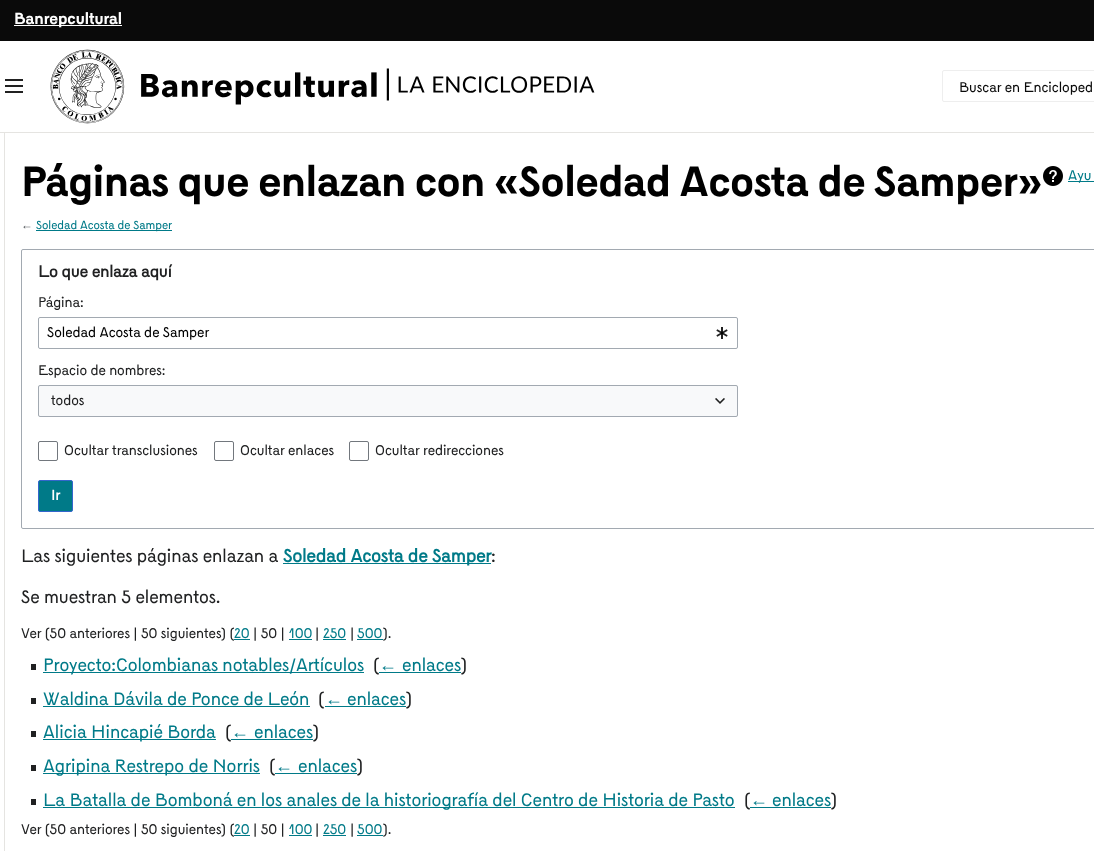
<?xml version="1.0" encoding="UTF-8"?>
<svg xmlns="http://www.w3.org/2000/svg" width="1094" height="851">
    <rect width="100%" height="100%" fill="#FFFFFF"/>
    <rect x="0" y="0" width="1094" height="41" fill="#0A0A0A"/>
    <rect x="14" y="25" width="108" height="1" fill="#FEFEFE"/>
    <text x="14" y="24" font-family="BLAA" font-size="16" font-weight="700" fill="#FEFEFE">Banrepcultural</text>
    <rect x="0" y="132" width="1094" height="1" fill="#E5E4E1"/>
    <image x="5" y="79" width="18" height="14" href="img_01.png"/>
    <image x="50" y="49" width="545" height="75" href="img_02.png"/>
    <rect x="942.5" y="70.5" width="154" height="31" rx="1.5" fill="none" stroke="#EEEEEE"/>
    <text x="959" y="92" font-family="BLAA" font-size="14" fill="#0A0A0A">Buscar en Encicloped</text>
    <rect x="4" y="133" width="1" height="718" fill="#E5E4E1"/>
    <text x="21" y="196" font-family="BLAA" font-size="42" font-weight="700" fill="#000000">Páginas que enlazan con «Soledad Acosta de Samper»</text>
    <image x="1043" y="166" width="20" height="20" href="img_03.png"/>
    <rect x="1068" y="181" width="26" height="1" fill="#007A88"/>
    <text x="1068" y="180" font-family="BLAA" font-size="14" fill="#007A88">Ayu</text>
    <text x="21" y="229" font-family="Liberation Serif" font-size="11.75" fill="#54595D">←</text>
    <rect x="36" y="230" width="136" height="1" fill="#007A88"/>
    <text x="36" y="229" font-family="BLAA" font-size="11.75" fill="#007A88">Soledad Acosta de Samper</text>
    <rect x="21.5" y="249.5" width="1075" height="279" rx="1.5" fill="none" stroke="#A2A9B1"/>
    <text x="38" y="277" font-family="'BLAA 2'" font-size="16" font-weight="700" fill="#202122">Lo que enlaza aquí</text>
    <text x="38" y="307" font-family="BLAA" font-size="14" fill="#202122">Página:</text>
    <rect x="38.5" y="317.5" width="699" height="31" rx="1.5" fill="none" stroke="#A2A9B1"/>
    <text x="47" y="337" font-family="BLAA" font-size="14" fill="#000000">Soledad Acosta de Samper</text>
    <image x="716" y="327" width="12" height="12" href="img_04.png"/>
    <text x="38" y="375" font-family="BLAA" font-size="14" fill="#202122">Espacio de nombres:</text>
    <rect x="38" y="385" width="700" height="32" fill="#F8F9FA"/>
    <rect x="38.5" y="385.5" width="699" height="31" rx="1.5" fill="none" stroke="#A2A9B1"/>
    <text x="51" y="405" font-family="BLAA" font-size="14" fill="#202122">todos</text>
    <image x="715" y="398" width="10" height="6" href="img_05.png"/>
    <rect x="38.5" y="441.5" width="19" height="19" rx="1.5" fill="none" stroke="#72777D"/>
    <text x="64" y="455" font-family="BLAA" font-size="14" fill="#202122">Ocultar transclusiones</text>
    <rect x="214.5" y="441.5" width="19" height="19" rx="1.5" fill="none" stroke="#72777D"/>
    <text x="240" y="455" font-family="BLAA" font-size="14" fill="#202122">Ocultar enlaces</text>
    <rect x="349.5" y="441.5" width="19" height="19" rx="1.5" fill="none" stroke="#72777D"/>
    <text x="375" y="455" font-family="BLAA" font-size="14" fill="#202122">Ocultar redirecciones</text>
    <rect x="38.5" y="480.5" width="34" height="31" rx="1.5" fill="#007A88" stroke="#3366CC"/>
    <text x="51" y="500" font-family="'BLAA 2'" font-size="14" font-weight="700" fill="#FEFEFE">Ir</text>
    <text x="21" y="562" font-family="BLAA" font-size="18" fill="#202122">Las siguientes páginas enlazan a</text>
    <rect x="283" y="563" width="208" height="1" fill="#007A88"/>
    <text x="283" y="562" font-family="'BLAA 2'" font-size="18" font-weight="700" fill="#007A88">Soledad Acosta de Samper</text>
    <text x="491" y="562" font-family="BLAA" font-size="18" fill="#202122">:</text>
    <text x="21" y="603" font-family="BLAA" font-size="18" fill="#202122">Se muestran 5 elementos.</text>
    <text x="21" y="638" font-family="BLAA" font-size="14" fill="#202122">Ver (50 anteriores | 50 siguientes) (</text>
    <text x="234" y="638" font-family="BLAA" font-size="14" fill="#007A88">20</text>
    <rect x="234" y="639" width="16" height="1" fill="#007A88"/>
    <text x="253" y="638" font-family="BLAA" font-size="14" fill="#202122">| 50 |</text>
    <text x="289" y="638" font-family="BLAA" font-size="14" fill="#007A88">100</text>
    <rect x="289" y="639" width="23" height="1" fill="#007A88"/>
    <text x="315" y="638" font-family="BLAA" font-size="14" fill="#202122">|</text>
    <text x="323" y="638" font-family="BLAA" font-size="14" fill="#007A88">250</text>
    <rect x="323" y="639" width="23" height="1" fill="#007A88"/>
    <text x="350" y="638" font-family="BLAA" font-size="14" fill="#202122">|</text>
    <text x="357" y="638" font-family="BLAA" font-size="14" fill="#007A88">500</text>
    <rect x="357" y="639" width="26" height="1" fill="#007A88"/>
    <text x="383" y="638" font-family="BLAA" font-size="14" fill="#202122">).</text>
    <rect x="31" y="664" width="5" height="6" fill="#202122"/>
    <rect x="43" y="672" width="321" height="1" fill="#007A88"/>
    <text x="43" y="671" font-family="BLAA" font-size="18" fill="#007A88">Proyecto:Colombianas notables/Artículos</text>
    <text x="373" y="671" font-family="BLAA" font-size="18" fill="#202122">(</text>
    <text x="379" y="671" font-family="Liberation Serif" font-size="18" fill="#007A88">←</text>
    <rect x="379" y="672" width="82" height="1" fill="#007A88"/>
    <text x="402" y="671" font-family="BLAA" font-size="18" fill="#007A88">enlaces</text>
    <text x="461" y="671" font-family="BLAA" font-size="18" fill="#202122">)</text>
    <rect x="31" y="698" width="5" height="6" fill="#202122"/>
    <text x="43" y="705" font-family="BLAA" font-size="18" fill="#007A88">Waldina Dávila de Ponce de León</text>
    <rect x="43" y="706" width="267" height="1" fill="#007A88"/>
    <text x="318" y="705" font-family="BLAA" font-size="18" fill="#202122">(</text>
    <text x="325" y="705" font-family="Liberation Serif" font-size="18" fill="#007A88">←</text>
    <rect x="325" y="706" width="81" height="1" fill="#007A88"/>
    <text x="347" y="705" font-family="BLAA" font-size="18" fill="#007A88">enlaces</text>
    <text x="406" y="705" font-family="BLAA" font-size="18" fill="#202122">)</text>
    <rect x="31" y="731" width="5" height="6" fill="#202122"/>
    <rect x="43" y="739" width="173" height="1" fill="#007A88"/>
    <text x="43" y="738" font-family="BLAA" font-size="18" fill="#007A88">Alicia Hincapié Borda</text>
    <text x="225" y="738" font-family="BLAA" font-size="18" fill="#202122">(</text>
    <text x="231" y="738" font-family="Liberation Serif" font-size="18" fill="#007A88">←</text>
    <rect x="231" y="739" width="82" height="1" fill="#007A88"/>
    <text x="254" y="738" font-family="BLAA" font-size="18" fill="#007A88">enlaces</text>
    <text x="313" y="738" font-family="BLAA" font-size="18" fill="#202122">)</text>
    <rect x="31" y="765" width="5" height="6" fill="#202122"/>
    <rect x="43" y="773" width="217" height="1" fill="#007A88"/>
    <text x="43" y="772" font-family="BLAA" font-size="18" fill="#007A88">Agripina Restrepo de Norris</text>
    <text x="269" y="772" font-family="BLAA" font-size="18" fill="#202122">(</text>
    <text x="275" y="772" font-family="Liberation Serif" font-size="18" fill="#007A88">←</text>
    <rect x="275" y="773" width="82" height="1" fill="#007A88"/>
    <text x="298" y="772" font-family="BLAA" font-size="18" fill="#007A88">enlaces</text>
    <text x="357" y="772" font-family="BLAA" font-size="18" fill="#202122">)</text>
    <rect x="31" y="799" width="5" height="6" fill="#202122"/>
    <rect x="43" y="807" width="692" height="1" fill="#007A88"/>
    <text x="43" y="806" font-family="BLAA" font-size="18" fill="#007A88">La Batalla de Bomboná en los anales de la historiografía del Centro de Historia de Pasto</text>
    <text x="744" y="806" font-family="BLAA" font-size="18" fill="#202122">(</text>
    <text x="750" y="806" font-family="Liberation Serif" font-size="18" fill="#007A88">←</text>
    <rect x="750" y="807" width="81" height="1" fill="#007A88"/>
    <text x="772" y="806" font-family="BLAA" font-size="18" fill="#007A88">enlaces</text>
    <text x="831" y="806" font-family="BLAA" font-size="18" fill="#202122">)</text>
    <text x="21" y="834" font-family="BLAA" font-size="14" fill="#202122">Ver (50 anteriores | 50 siguientes) (</text>
    <text x="234" y="834" font-family="BLAA" font-size="14" fill="#007A88">20</text>
    <rect x="234" y="835" width="16" height="1" fill="#007A88"/>
    <text x="253" y="834" font-family="BLAA" font-size="14" fill="#202122">| 50 |</text>
    <text x="289" y="834" font-family="BLAA" font-size="14" fill="#007A88">100</text>
    <rect x="289" y="835" width="23" height="1" fill="#007A88"/>
    <text x="315" y="834" font-family="BLAA" font-size="14" fill="#202122">|</text>
    <text x="323" y="834" font-family="BLAA" font-size="14" fill="#007A88">250</text>
    <rect x="323" y="835" width="23" height="1" fill="#007A88"/>
    <text x="350" y="834" font-family="BLAA" font-size="14" fill="#202122">|</text>
    <text x="357" y="834" font-family="BLAA" font-size="14" fill="#007A88">500</text>
    <rect x="357" y="835" width="26" height="1" fill="#007A88"/>
    <text x="383" y="834" font-family="BLAA" font-size="14" fill="#202122">).</text>
</svg>
